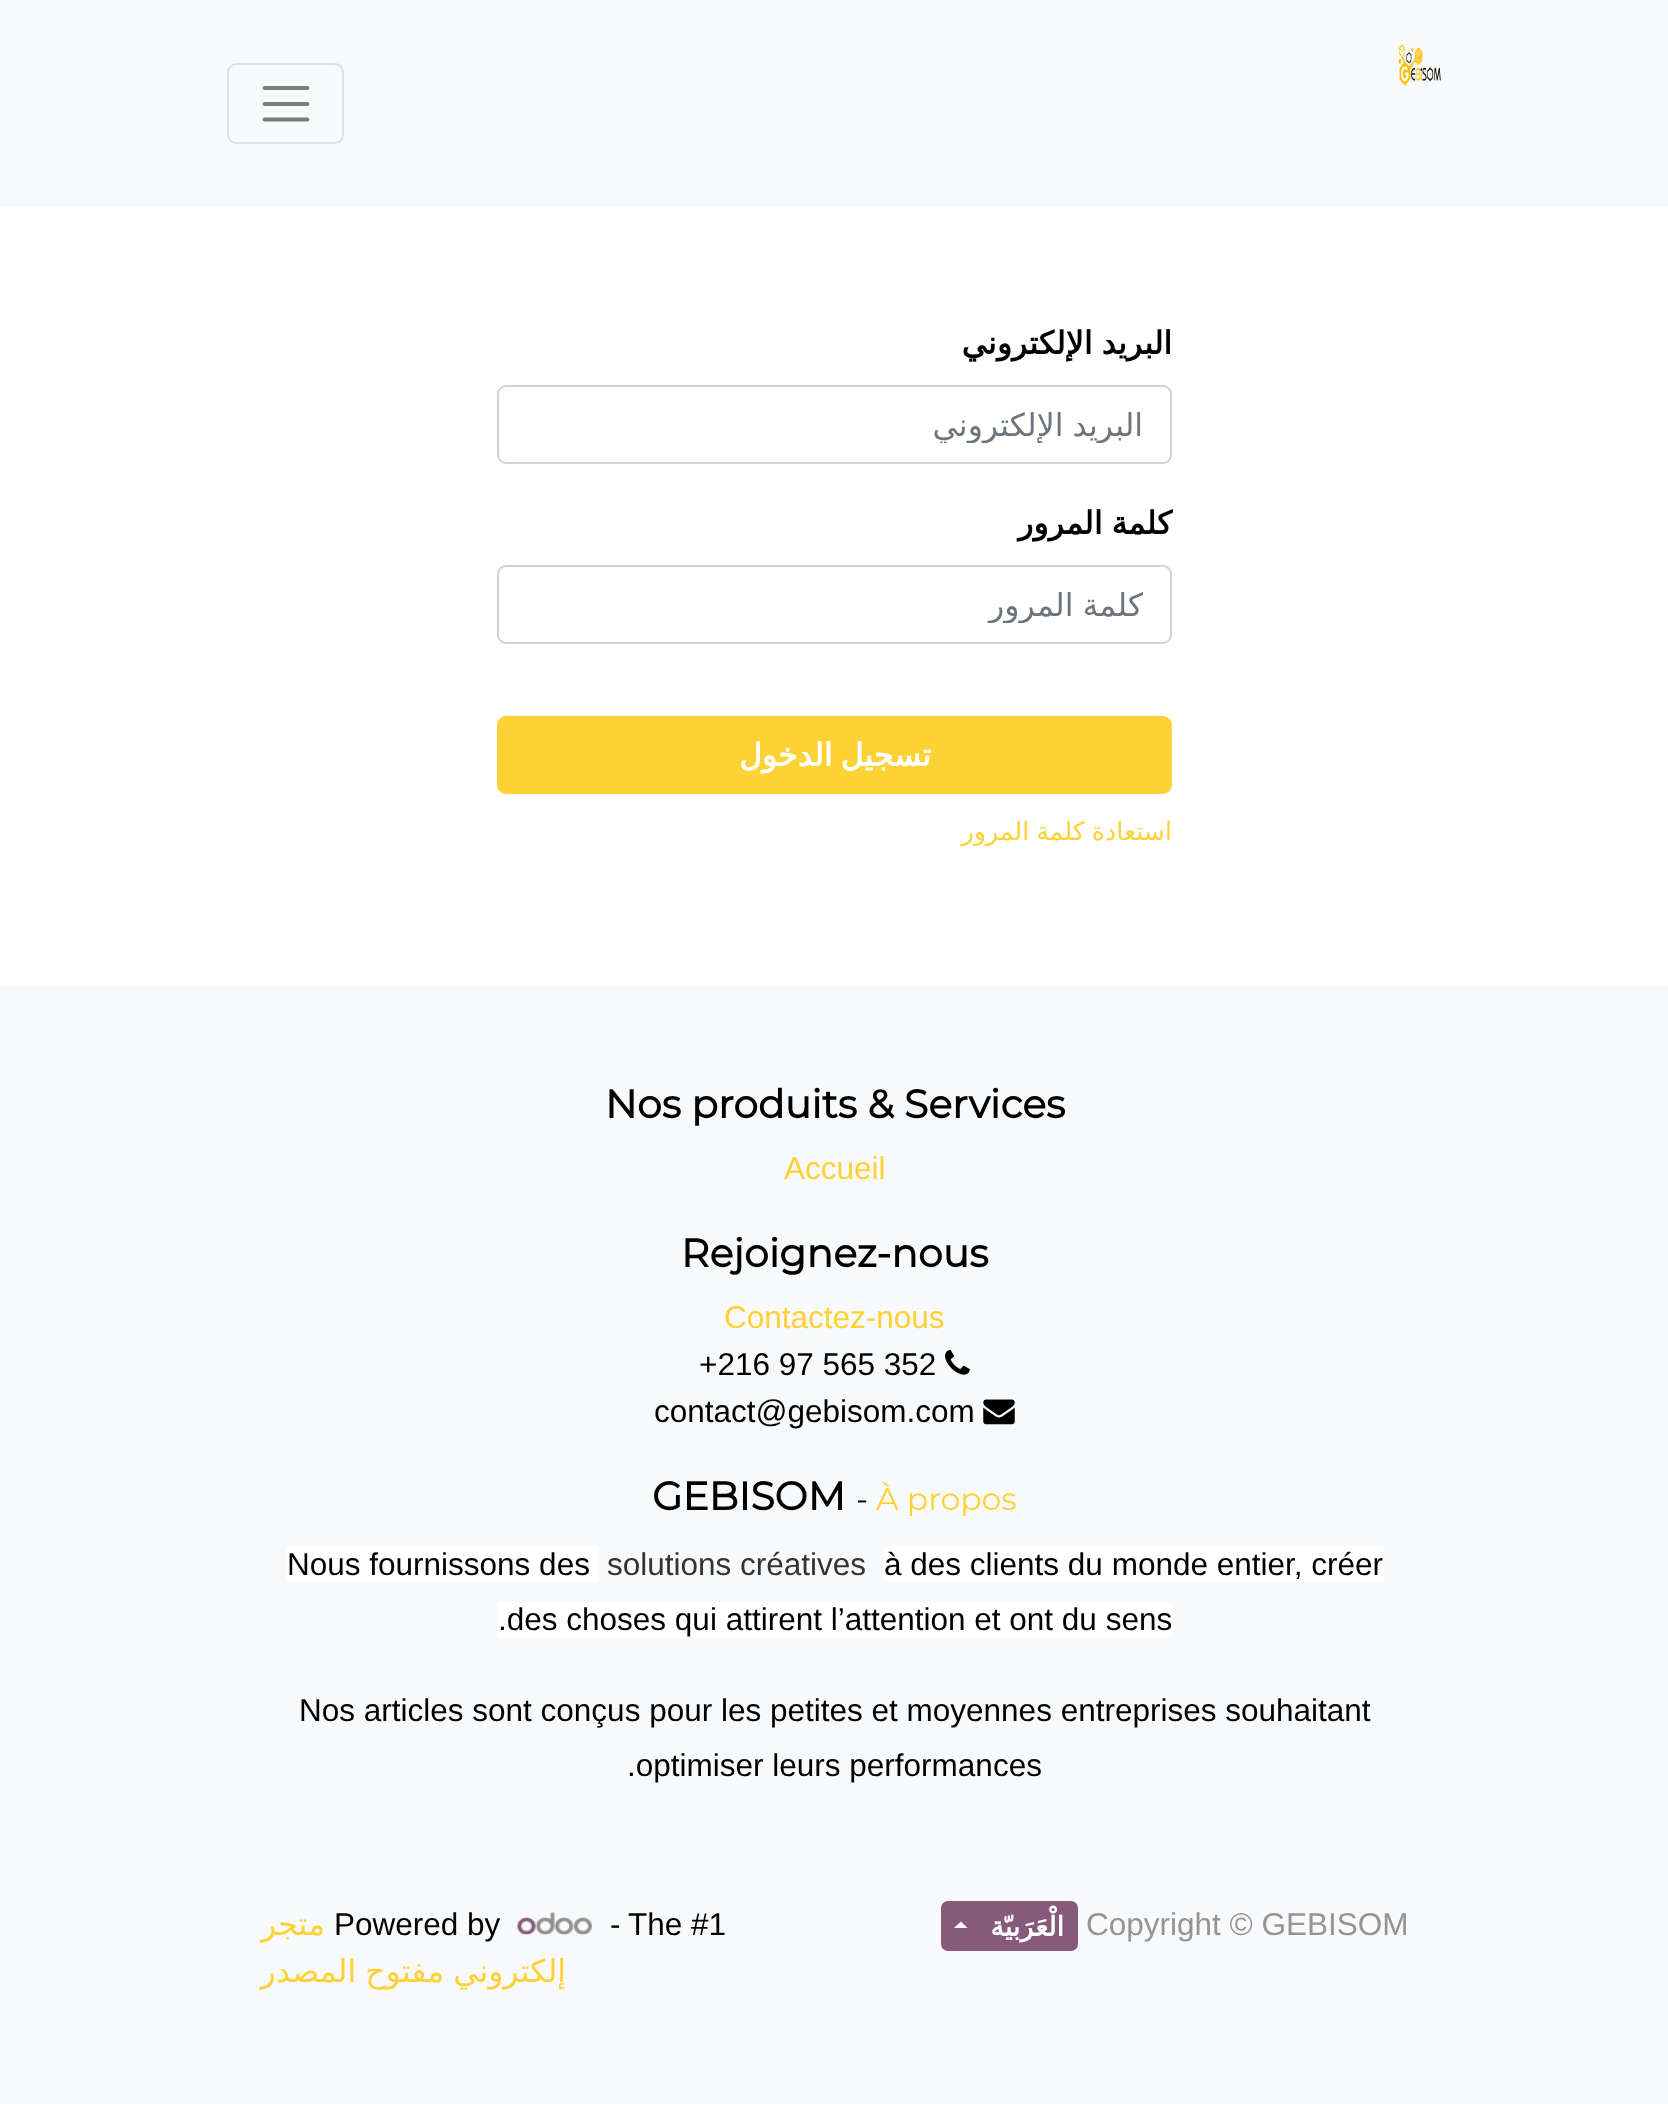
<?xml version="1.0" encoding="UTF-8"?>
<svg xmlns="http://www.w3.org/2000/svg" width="1668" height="2104">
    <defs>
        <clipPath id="clip1"><rect x="527" y="407" width="616" height="36"/></clipPath>
        <clipPath id="clip2"><rect x="527" y="587" width="616" height="36"/></clipPath>
    </defs>
    <rect width="100%" height="100%" fill="#FFFFFF"/>
    <rect x="0" y="0" width="1668" height="207" fill="#F8F9FA"/>
    <rect x="228" y="64" width="115" height="79" rx="8" fill="none" stroke="#DFE0E1" stroke-width="2"/>
    <path d="M 264.5 88 H 307.5 M 264.5 104 H 307.5 M 264.5 119.5 H 307.5" fill="none" stroke="#7C7D7D" stroke-width="3.9" stroke-linecap="round"/>
    <image x="1398" y="45" width="43" height="41" href="img_01.png"/>
    <text x="1172" y="354" word-spacing="-1" font-family="DejaVu Sans" font-size="31.5" font-weight="700" direction="rtl" fill="#000000">البريد الإلكتروني</text>
    <rect x="498" y="386" width="673" height="77" rx="8" fill="none" stroke="#CED4DA" stroke-width="2"/>
    <g clip-path="url(#clip1)">
        <text x="1143" y="436" word-spacing="-1" font-family="DejaVu Sans" font-size="31.5" direction="rtl" fill="#6C757D">البريد الإلكتروني</text>
    </g>
    <text x="1172" y="534" word-spacing="-1" font-family="DejaVu Sans" font-size="31.5" font-weight="700" direction="rtl" fill="#000000">كلمة المرور</text>
    <rect x="498" y="566" width="673" height="77" rx="8" fill="none" stroke="#CED4DA" stroke-width="2"/>
    <g clip-path="url(#clip2)">
        <text x="1143" y="616" word-spacing="-1" font-family="DejaVu Sans" font-size="31.5" direction="rtl" fill="#6C757D">كلمة المرور</text>
    </g>
    <rect x="498" y="717" width="673" height="76" rx="8" fill="#FED136" stroke="#FED136" stroke-width="2"/>
    <text x="931" y="766" word-spacing="-2" font-family="DejaVu Sans" font-size="31.5" font-weight="700" direction="rtl" fill="#FFFFFF">تسجيل الدخول</text>
    <text x="1172" y="840" word-spacing="-1" font-family="DejaVu Sans" font-size="25.25" direction="rtl" fill="#FED136">استعادة كلمة المرور</text>
    <rect x="0" y="986" width="1668" height="1118" fill="#F8F9FA"/>
    <text x="605" y="1118" font-family="Montserrat" font-size="39.4" font-weight="700" fill="#000000">Nos produits &amp; Services</text>
    <text x="784" y="1179" font-family="Liberation Sans" font-size="31.5" fill="#FED136">Accueil</text>
    <text x="681" y="1267" font-family="Montserrat" font-size="39.4" font-weight="700" fill="#000000">Rejoignez-nous</text>
    <text x="724" y="1328" font-family="Liberation Sans" font-size="31.5" fill="#FED136">Contactez-nous</text>
    <text x="699" y="1375" font-family="Liberation Sans" font-size="31.5" fill="#000000">+216 97 565 352</text>
    <image x="945" y="1350" width="25" height="25" href="img_02.png"/>
    <text x="654" y="1422" font-family="Liberation Sans" font-size="31.5" fill="#000000">contact@gebisom.com</text>
    <image x="983" y="1399" width="32" height="26" href="img_03.png"/>
    <text x="652" y="1510" font-family="Montserrat" font-size="39.4" font-weight="700" fill="#000000">GEBISOM</text>
    <text x="856" y="1510" font-family="Montserrat" font-size="31.5" fill="#000000">-</text>
    <text x="876" y="1510" font-family="Montserrat" font-size="31.5" fill="#FED136">À propos</text>
    <rect x="286" y="1546" width="313" height="36" fill="#FFFFFF"/>
    <text x="287" y="1575" font-family="Liberation Sans" font-size="31.5" fill="#000000">Nous fournissons des</text>
    <text x="607" y="1575" font-family="Liberation Sans" font-size="31.5" fill="#333333">solutions créatives</text>
    <rect x="884" y="1546" width="500" height="36" fill="#FFFFFF"/>
    <text x="884" y="1575" font-family="Liberation Sans" font-size="31.5" fill="#000000">à des clients du monde entier, créer</text>
    <rect x="497" y="1602" width="675" height="36" fill="#FFFFFF"/>
    <text x="498" y="1630" font-family="Liberation Sans" font-size="31.5" fill="#000000">.des choses qui attirent l’attention et ont du sens</text>
    <text x="299" y="1721" font-family="Liberation Sans" font-size="31.5" fill="#000000">Nos articles sont conçus pour les petites et moyennes entreprises souhaitant</text>
    <text x="627" y="1776" font-family="Liberation Sans" font-size="31.5" fill="#000000">.optimiser leurs performances</text>
    <text x="325" y="1935" font-family="DejaVu Sans" font-size="31.5" direction="rtl" fill="#FED136">متجر</text>
    <text x="334" y="1935" font-family="Liberation Sans" font-size="31.5" fill="#000000">Powered by</text>
    <image x="517" y="1912" width="75" height="23" href="img_04.png"/>
    <text x="610" y="1935" font-family="Liberation Sans" font-size="31.5" fill="#000000">-</text>
    <text x="628" y="1935" font-family="Liberation Sans" font-size="31.5" fill="#000000">The #1</text>
    <text x="566" y="1982" word-spacing="-1" font-family="DejaVu Sans" font-size="31.5" direction="rtl" fill="#FED136">إلكتروني مفتوح المصدر</text>
    <rect x="942" y="1902" width="135" height="48" rx="6" fill="#875A7B" stroke="#875A7B" stroke-width="2"/>
    <path d="M 967.5 1928 H 954 L 961 1921.5 Z" fill="#FFFFFF"/>
    <text x="1064" y="1936" font-family="DejaVu Sans" font-size="27" font-weight="700" direction="rtl" fill="#FFFFFF">الْعَرَبيّة</text>
    <text x="1086" y="1935" font-family="Liberation Sans" font-size="31.5" fill="#959596">Copyright © GEBISOM</text>
</svg>
